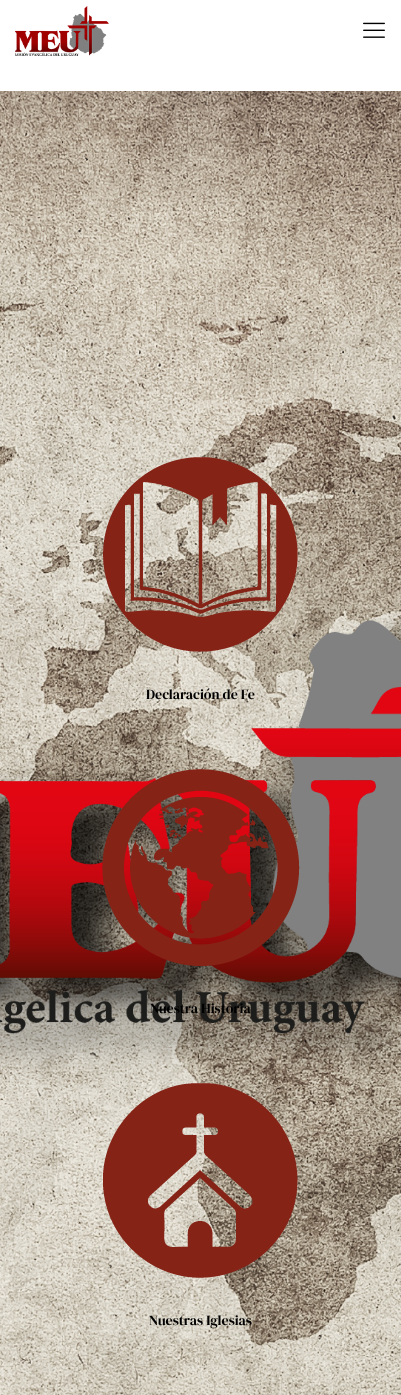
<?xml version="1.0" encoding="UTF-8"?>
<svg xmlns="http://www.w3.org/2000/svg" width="401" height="1395">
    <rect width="100%" height="100%" fill="#FFFFFF"/>
    <image x="15" y="6" width="94" height="50" href="img_01.png"/>
    <image x="363" y="22" width="22" height="16" href="img_02.png"/>
    <image x="0" y="91" width="401" height="1304" href="img_03.png"/>
    <image x="103" y="457" width="195" height="195" href="img_04.png"/>
    <text x="146" y="699" font-family="DM Serif Display" font-size="14" fill="#000000">Declaración de Fe</text>
    <image x="102" y="769" width="198" height="197" href="img_05.png"/>
    <text x="150" y="1013" font-family="DM Serif Display" font-size="14" fill="#000000">Nuestra Historia</text>
    <image x="103" y="1083" width="195" height="195" href="img_06.png"/>
    <text x="149" y="1325" font-family="DM Serif Display" font-size="14" fill="#000000">Nuestras Iglesias</text>
</svg>
